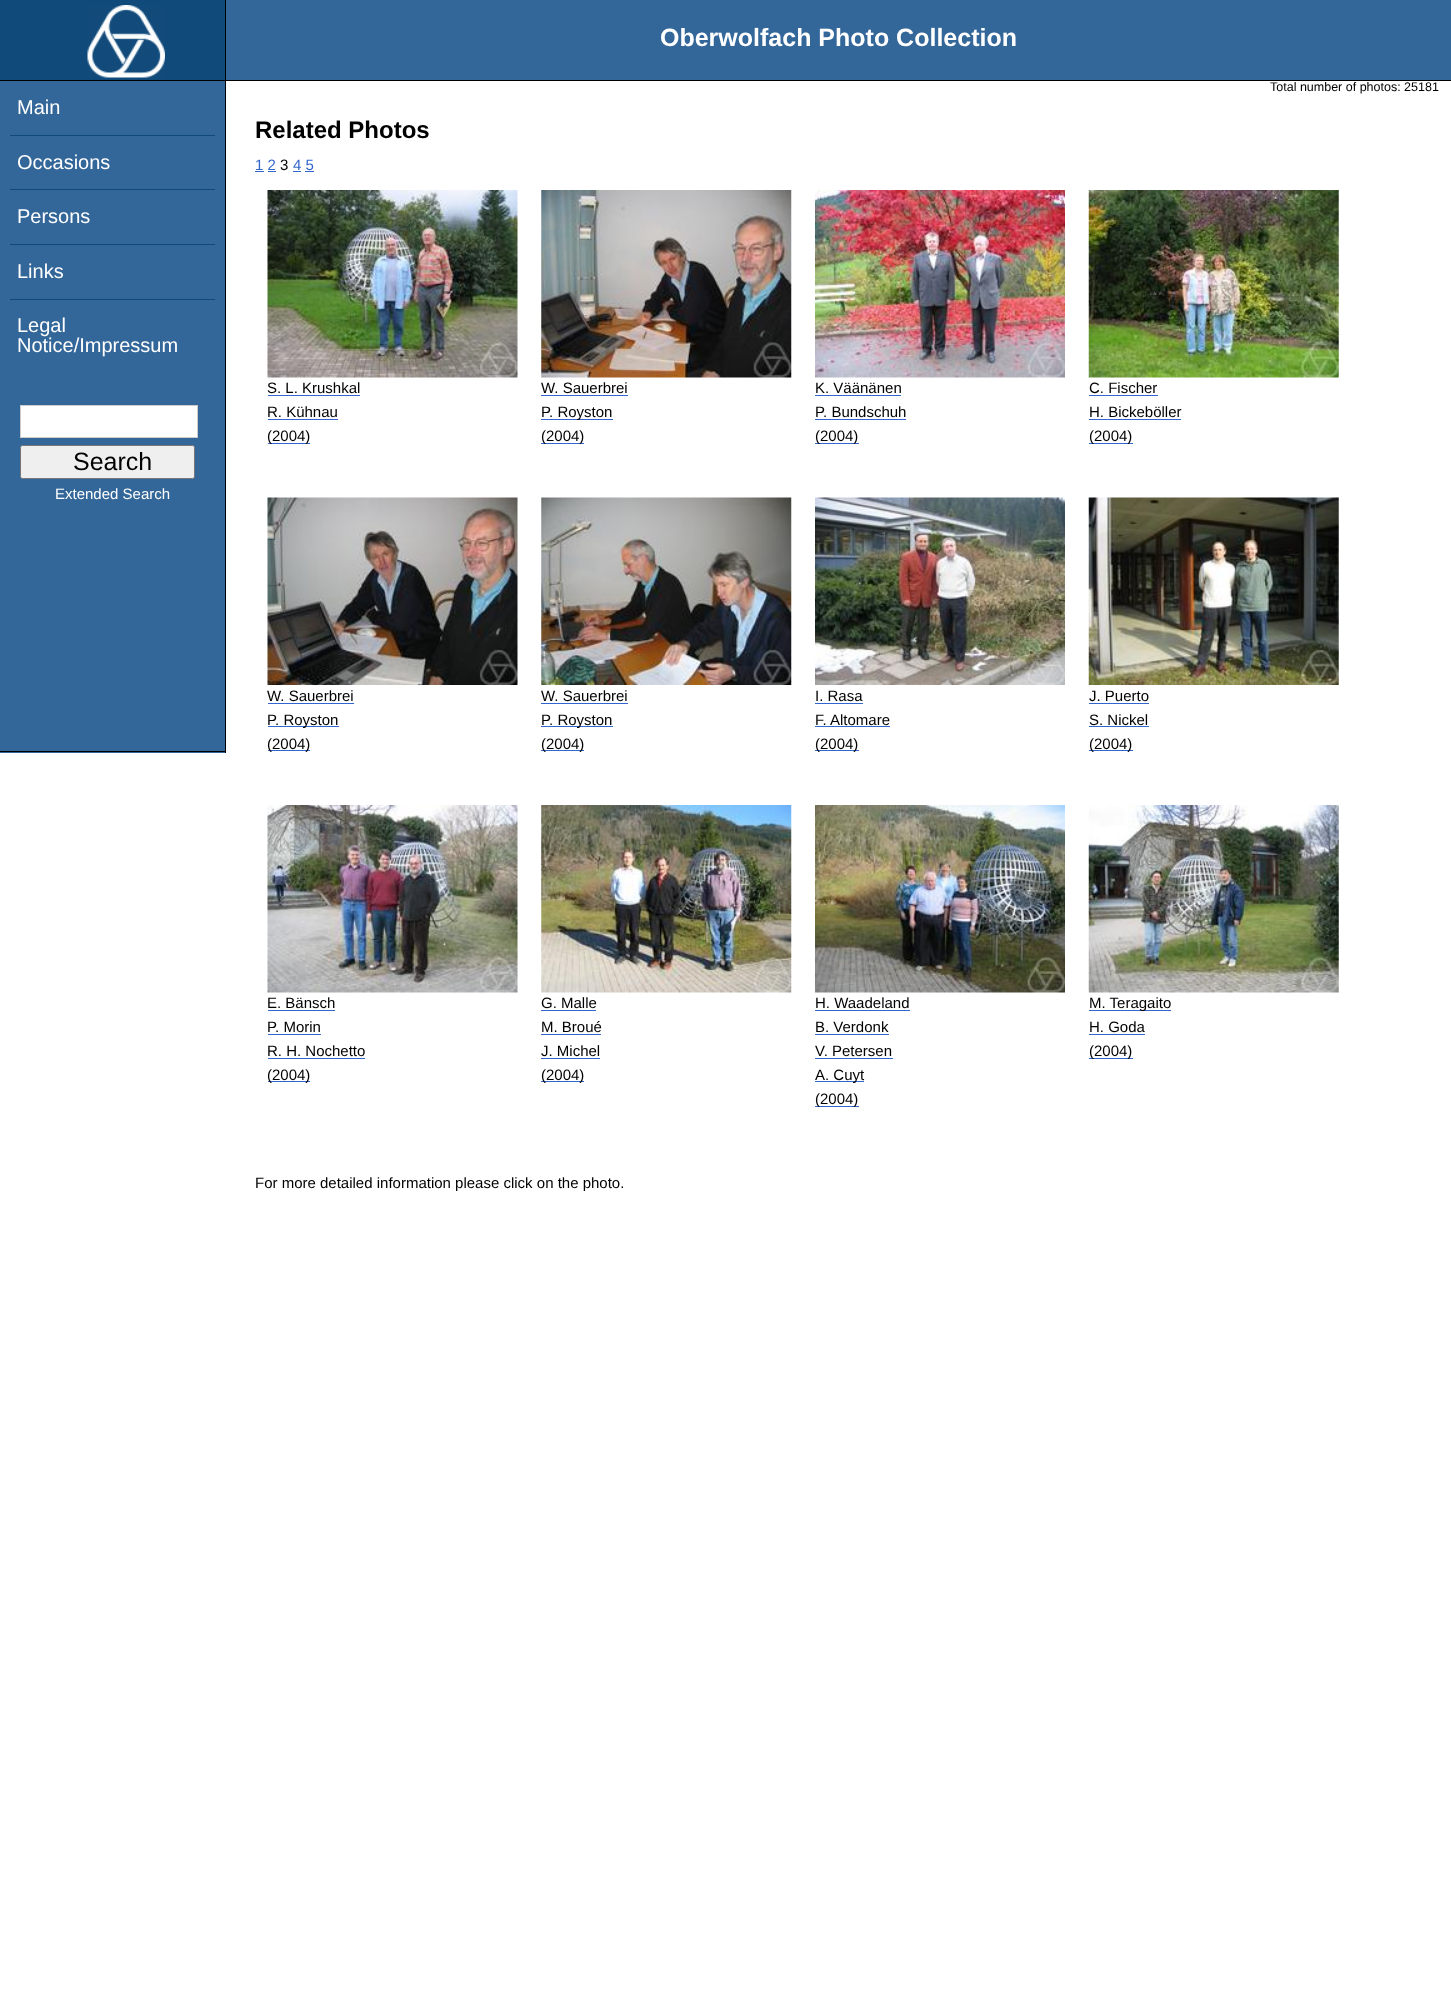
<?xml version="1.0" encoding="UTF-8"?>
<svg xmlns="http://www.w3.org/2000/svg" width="1451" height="2007">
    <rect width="100%" height="100%" fill="#FFFFFF"/>
    <rect x="226" y="0" width="1225" height="80" fill="#336699"/>
    <rect x="0" y="80" width="1451" height="1" fill="#000000"/>
    <rect x="0" y="0" width="225" height="80" fill="#104A7B"/>
    <rect x="225" y="0" width="1" height="80" fill="#000000"/>
    <image x="87" y="5" width="78" height="73" href="img_01.png"/>
    <text x="660" y="46" font-family="Liberation Sans" font-size="25" font-weight="700" fill="#FFFFFF">Oberwolfach Photo Collection</text>
    <text x="1270" y="91" font-family="Liberation Sans" font-size="12.5" fill="#000000">Total number of photos: 25181</text>
    <rect x="0" y="81" width="225" height="672" fill="#336699"/>
    <rect x="225" y="81" width="1" height="672" fill="#000000"/>
    <rect x="0" y="751" width="226" height="1" fill="#000000"/>
    <text x="17" y="114" font-family="Liberation Sans" font-size="20" fill="#FFFFFF">Main</text>
    <rect x="10" y="135" width="205" height="1" fill="#104A7B"/>
    <text x="17" y="169" font-family="Liberation Sans" font-size="20" fill="#FFFFFF">Occasions</text>
    <rect x="10" y="189" width="205" height="1" fill="#104A7B"/>
    <text x="17" y="223" font-family="Liberation Sans" font-size="20" fill="#FFFFFF">Persons</text>
    <rect x="10" y="244" width="205" height="1" fill="#104A7B"/>
    <text x="17" y="278" font-family="Liberation Sans" font-size="20" fill="#FFFFFF">Links</text>
    <rect x="10" y="299" width="205" height="1" fill="#104A7B"/>
    <text font-family="Liberation Sans" font-size="20" fill="#FFFFFF">
        <tspan x="17" y="332">Legal</tspan>
        <tspan x="17" y="352">Notice/Impressum</tspan>
    </text>
    <rect x="20.5" y="405.5" width="177" height="32" fill="#FFFFFF" stroke="#CCCCCC"/>
    <rect x="20.5" y="445.5" width="174" height="33" rx="2" fill="#EFEFEF" stroke="#767676"/>
    <text x="73" y="470" font-family="Liberation Sans" font-size="25" fill="#000000">Search</text>
    <text x="55" y="499" font-family="Liberation Sans" font-size="15" fill="#FFFFFF">Extended Search</text>
    <text x="255" y="138" font-family="Liberation Sans" font-size="24" font-weight="700" fill="#000000">Related Photos</text>
    <text x="255" y="170" font-family="Liberation Sans" font-size="15" fill="#3366CC">1 2</text>
    <rect x="255" y="171" width="9" height="1" fill="#3366CC"/>
    <text x="280" y="170" font-family="Liberation Sans" font-size="15" fill="#000000">3</text>
    <text x="293" y="170" font-family="Liberation Sans" font-size="15" fill="#3366CC">4 5</text>
    <rect x="293" y="171" width="8" height="1" fill="#3366CC"/>
    <rect x="268" y="171" width="8" height="1" fill="#3366CC"/>
    <rect x="305" y="171" width="9" height="1" fill="#3366CC"/>
    <image x="267" y="190" width="251" height="188" href="img_02.png"/>
    <text x="267" y="393" font-family="Liberation Sans" font-size="15" fill="#000000">S. L. Krushkal</text>
    <rect x="268" y="395" width="92" height="1" fill="#3366CC"/>
    <text x="267" y="417" font-family="Liberation Sans" font-size="15" fill="#000000">R. Kühnau</text>
    <rect x="268" y="419" width="70" height="1" fill="#3366CC"/>
    <rect x="268" y="443" width="42" height="1" fill="#3366CC"/>
    <text x="267" y="441" font-family="Liberation Sans" font-size="15" fill="#000000">(2004)</text>
    <image x="541" y="190" width="251" height="188" href="img_03.png"/>
    <text x="541" y="393" font-family="Liberation Sans" font-size="15" fill="#000000">W. Sauerbrei</text>
    <rect x="541" y="395" width="87" height="1" fill="#3366CC"/>
    <rect x="541" y="419" width="72" height="1" fill="#3366CC"/>
    <text x="541" y="417" font-family="Liberation Sans" font-size="15" fill="#000000">P. Royston</text>
    <rect x="541" y="443" width="43" height="1" fill="#3366CC"/>
    <text x="541" y="441" font-family="Liberation Sans" font-size="15" fill="#000000">(2004)</text>
    <image x="815" y="190" width="250" height="188" href="img_04.png"/>
    <text x="815" y="393" font-family="Liberation Sans" font-size="15" fill="#000000">K. Väänänen</text>
    <rect x="815" y="395" width="86" height="1" fill="#3366CC"/>
    <text x="815" y="417" font-family="Liberation Sans" font-size="15" fill="#000000">P. Bundschuh</text>
    <rect x="815" y="419" width="91" height="1" fill="#3366CC"/>
    <rect x="815" y="443" width="44" height="1" fill="#3366CC"/>
    <text x="815" y="441" font-family="Liberation Sans" font-size="15" fill="#000000">(2004)</text>
    <image x="1088" y="190" width="251" height="188" href="img_05.png"/>
    <text x="1089" y="393" font-family="Liberation Sans" font-size="15" fill="#000000">C. Fischer</text>
    <rect x="1089" y="395" width="69" height="1" fill="#3366CC"/>
    <text x="1089" y="417" font-family="Liberation Sans" font-size="15" fill="#000000">H. Bickeböller</text>
    <rect x="1089" y="419" width="92" height="1" fill="#3366CC"/>
    <rect x="1089" y="443" width="44" height="1" fill="#3366CC"/>
    <text x="1089" y="441" font-family="Liberation Sans" font-size="15" fill="#000000">(2004)</text>
    <image x="267" y="497" width="251" height="188" href="img_06.png"/>
    <text x="267" y="701" font-family="Liberation Sans" font-size="15" fill="#000000">W. Sauerbrei</text>
    <rect x="268" y="703" width="86" height="1" fill="#3366CC"/>
    <rect x="268" y="726" width="71" height="1" fill="#3366CC"/>
    <text x="267" y="725" font-family="Liberation Sans" font-size="15" fill="#000000">P. Royston</text>
    <rect x="268" y="750" width="42" height="1" fill="#3366CC"/>
    <text x="267" y="749" font-family="Liberation Sans" font-size="15" fill="#000000">(2004)</text>
    <image x="541" y="497" width="251" height="188" href="img_07.png"/>
    <text x="541" y="701" font-family="Liberation Sans" font-size="15" fill="#000000">W. Sauerbrei</text>
    <rect x="541" y="703" width="87" height="1" fill="#3366CC"/>
    <rect x="541" y="726" width="72" height="1" fill="#3366CC"/>
    <text x="541" y="725" font-family="Liberation Sans" font-size="15" fill="#000000">P. Royston</text>
    <rect x="541" y="750" width="43" height="1" fill="#3366CC"/>
    <text x="541" y="749" font-family="Liberation Sans" font-size="15" fill="#000000">(2004)</text>
    <image x="815" y="497" width="250" height="188" href="img_08.png"/>
    <text x="815" y="701" font-family="Liberation Sans" font-size="15" fill="#000000">I. Rasa</text>
    <rect x="815" y="703" width="48" height="1" fill="#3366CC"/>
    <text x="815" y="725" font-family="Liberation Sans" font-size="15" fill="#000000">F. Altomare</text>
    <rect x="815" y="726" width="75" height="1" fill="#3366CC"/>
    <rect x="815" y="750" width="44" height="1" fill="#3366CC"/>
    <text x="815" y="749" font-family="Liberation Sans" font-size="15" fill="#000000">(2004)</text>
    <image x="1088" y="497" width="251" height="188" href="img_09.png"/>
    <text x="1089" y="701" font-family="Liberation Sans" font-size="15" fill="#000000">J. Puerto</text>
    <rect x="1089" y="703" width="60" height="1" fill="#3366CC"/>
    <text x="1089" y="725" font-family="Liberation Sans" font-size="15" fill="#000000">S. Nickel</text>
    <rect x="1089" y="726" width="60" height="1" fill="#3366CC"/>
    <rect x="1089" y="750" width="44" height="1" fill="#3366CC"/>
    <text x="1089" y="749" font-family="Liberation Sans" font-size="15" fill="#000000">(2004)</text>
    <image x="267" y="805" width="251" height="188" href="img_10.png"/>
    <text x="267" y="1008" font-family="Liberation Sans" font-size="15" fill="#000000">E. Bänsch</text>
    <rect x="268" y="1010" width="67" height="1" fill="#3366CC"/>
    <text x="267" y="1032" font-family="Liberation Sans" font-size="15" fill="#000000">P. Morin</text>
    <rect x="268" y="1034" width="53" height="1" fill="#3366CC"/>
    <text x="267" y="1056" font-family="Liberation Sans" font-size="15" fill="#000000">R. H. Nochetto</text>
    <rect x="268" y="1058" width="97" height="1" fill="#3366CC"/>
    <rect x="268" y="1081" width="42" height="1" fill="#3366CC"/>
    <text x="267" y="1080" font-family="Liberation Sans" font-size="15" fill="#000000">(2004)</text>
    <image x="541" y="805" width="251" height="188" href="img_11.png"/>
    <text x="541" y="1008" font-family="Liberation Sans" font-size="15" fill="#000000">G. Malle</text>
    <rect x="541" y="1010" width="55" height="1" fill="#3366CC"/>
    <text x="541" y="1032" font-family="Liberation Sans" font-size="15" fill="#000000">M. Broué</text>
    <rect x="541" y="1034" width="60" height="1" fill="#3366CC"/>
    <text x="541" y="1056" font-family="Liberation Sans" font-size="15" fill="#000000">J. Michel</text>
    <rect x="541" y="1058" width="59" height="1" fill="#3366CC"/>
    <rect x="541" y="1081" width="43" height="1" fill="#3366CC"/>
    <text x="541" y="1080" font-family="Liberation Sans" font-size="15" fill="#000000">(2004)</text>
    <image x="815" y="805" width="250" height="188" href="img_12.png"/>
    <text x="815" y="1008" font-family="Liberation Sans" font-size="15" fill="#000000">H. Waadeland</text>
    <rect x="815" y="1010" width="95" height="1" fill="#3366CC"/>
    <text x="815" y="1032" font-family="Liberation Sans" font-size="15" fill="#000000">B. Verdonk</text>
    <rect x="815" y="1034" width="74" height="1" fill="#3366CC"/>
    <text x="815" y="1056" font-family="Liberation Sans" font-size="15" fill="#000000">V. Petersen</text>
    <rect x="815" y="1058" width="78" height="1" fill="#3366CC"/>
    <rect x="815" y="1081" width="49" height="1" fill="#3366CC"/>
    <text x="815" y="1080" font-family="Liberation Sans" font-size="15" fill="#000000">A. Cuyt</text>
    <rect x="815" y="1106" width="44" height="1" fill="#3366CC"/>
    <text x="815" y="1104" font-family="Liberation Sans" font-size="15" fill="#000000">(2004)</text>
    <image x="1088" y="805" width="251" height="188" href="img_13.png"/>
    <rect x="1089" y="1010" width="82" height="1" fill="#3366CC"/>
    <text font-family="Liberation Sans" font-size="15" fill="#000000">
        <tspan x="1089" y="1008">M. Teragaito</tspan>
        <tspan x="1089" y="1032">H. Goda</tspan>
    </text>
    <rect x="1089" y="1034" width="56" height="1" fill="#3366CC"/>
    <rect x="1089" y="1058" width="44" height="1" fill="#3366CC"/>
    <text x="1089" y="1056" font-family="Liberation Sans" font-size="15" fill="#000000">(2004)</text>
    <text x="255" y="1188" font-family="Liberation Sans" font-size="15" fill="#000000">For more detailed information please click on the photo.</text>
</svg>
